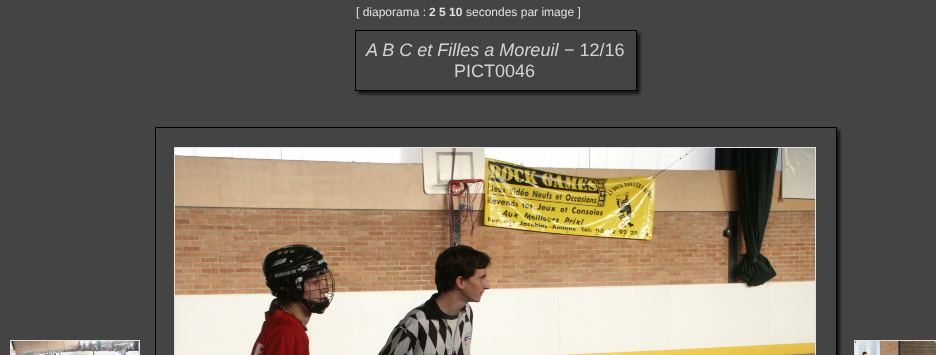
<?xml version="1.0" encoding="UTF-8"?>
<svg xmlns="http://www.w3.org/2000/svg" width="936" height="355">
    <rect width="100%" height="100%" fill="#444444"/>
    <text x="356" y="16" font-family="Liberation Sans" font-size="12" fill="#E0E0E0">[ diaporama :</text>
    <text x="429" y="16" font-family="Liberation Sans" font-size="12" font-weight="700" fill="#E0E0E0">2 5 10</text>
    <text x="466" y="16" font-family="Liberation Sans" font-size="12" fill="#E0E0E0">secondes par image ]</text>
    <image x="350" y="26" width="14" height="14" href="img_01.png"/>
    <rect x="364" y="30" width="262" height="1" fill="#000000"/>
    <image x="626" y="27" width="16" height="13" href="img_02.png"/>
    <rect x="355" y="40" width="1" height="42" fill="#000000"/>
    <text x="366" y="56" font-family="Liberation Sans" font-size="18" font-style="italic" fill="#D3D3D3">A B C et Filles a Moreuil</text>
    <text x="564" y="56" font-family="Liberation Sans" font-size="18" fill="#D3D3D3">− 12/16</text>
    <text x="454" y="77" font-family="Liberation Sans" font-size="18" fill="#D3D3D3">PICT0046</text>
    <image x="636" y="40" width="6" height="42" href="img_03.png"/>
    <image x="354" y="82" width="10" height="14" href="img_04.png"/>
    <image x="364" y="90" width="262" height="6" href="img_05.png"/>
    <image x="626" y="82" width="16" height="14" href="img_06.png"/>
    <image x="150" y="123" width="14" height="14" href="img_01.png"/>
    <rect x="164" y="127" width="662" height="1" fill="#000000"/>
    <image x="826" y="124" width="16" height="13" href="img_02.png"/>
    <rect x="155" y="137" width="1" height="218" fill="#000000"/>
    <rect x="174.5" y="147.5" width="641" height="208" fill="none" stroke="#E0E0E0"/>
    <image x="175" y="148" width="640" height="207" href="img_07.png"/>
    <image x="836" y="137" width="6" height="218" href="img_08.png"/>
    <rect x="10.5" y="340.5" width="129" height="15" fill="none" stroke="#E0E0E0"/>
    <image x="11" y="341" width="128" height="14" href="img_09.png"/>
    <rect x="854.5" y="340.5" width="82" height="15" fill="none" stroke="#E0E0E0"/>
    <image x="855" y="341" width="81" height="14" href="img_10.png"/>
</svg>
